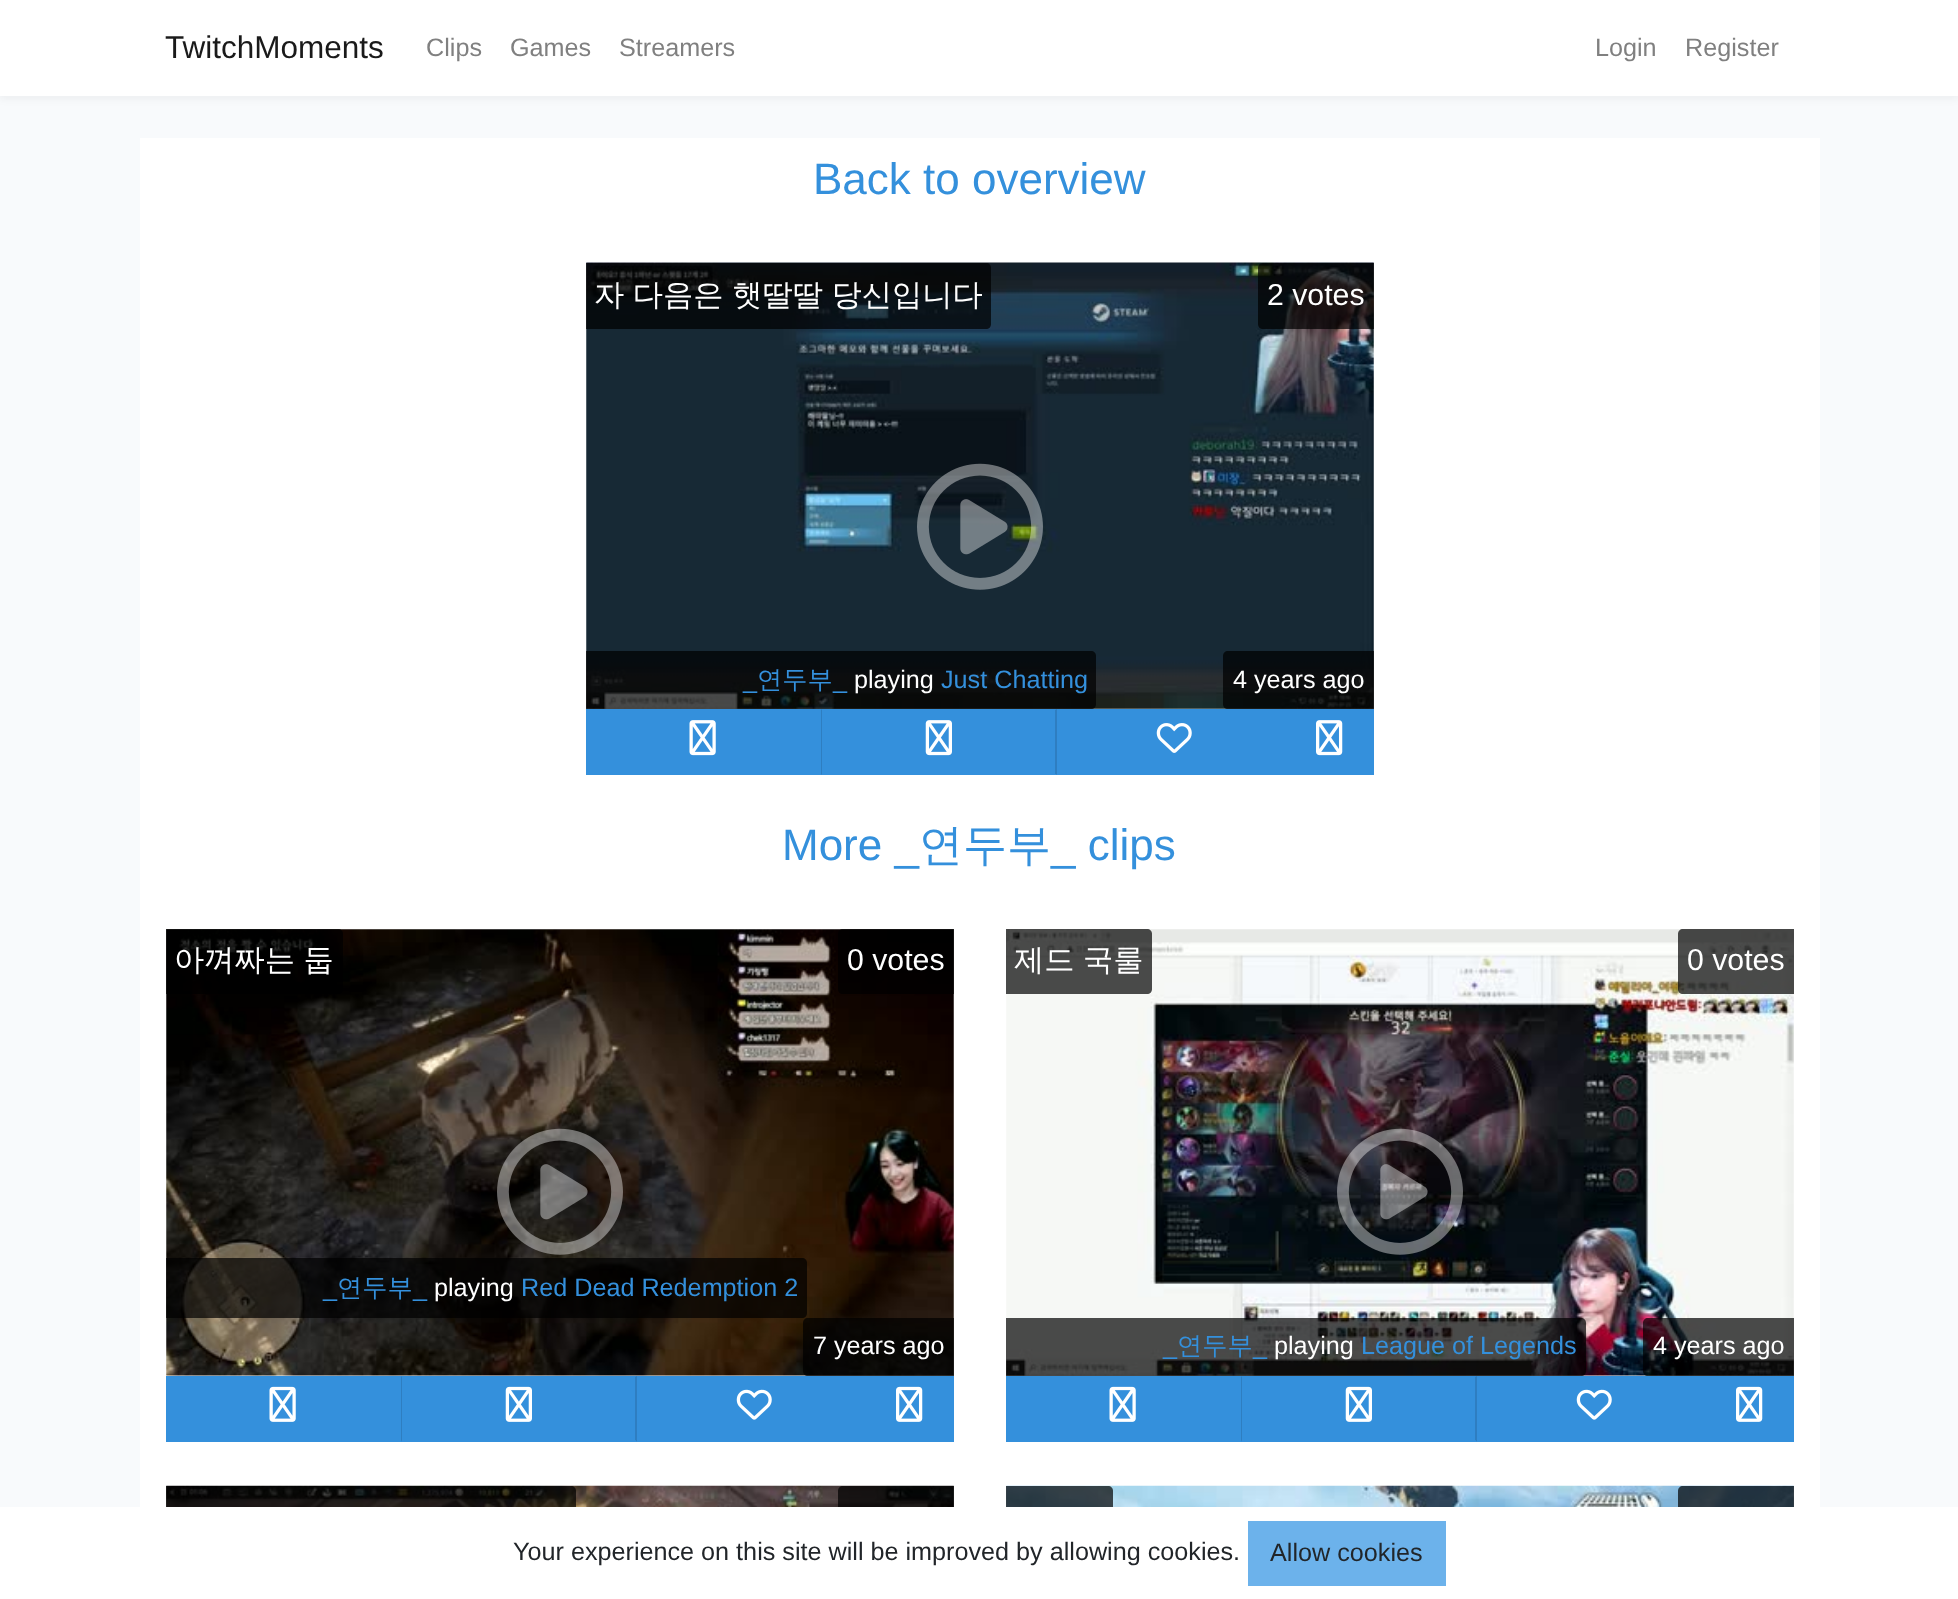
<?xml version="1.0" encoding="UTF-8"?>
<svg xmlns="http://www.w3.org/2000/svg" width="1958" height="1599">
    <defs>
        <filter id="blur1" x="-50%" y="-200%" width="200%" height="500%"><feGaussianBlur stdDeviation="3.5"/></filter>
    </defs>
    <rect width="100%" height="100%" fill="#F8FAFC"/>
    <rect x="0" y="4" width="1958" height="96" fill="#000000" fill-opacity="0.04" filter="url(#blur1)"/>
    <rect x="0" y="0" width="1958" height="96" fill="#FFFFFF"/>
    <text x="165" y="58" font-family="Liberation Sans" font-size="31.5" fill="#1A1A1A">TwitchMoments</text>
    <text x="426" y="56" font-family="Liberation Sans" font-size="25.2" fill="#808080">Clips</text>
    <text x="510" y="56" font-family="Liberation Sans" font-size="25.2" fill="#808080">Games</text>
    <text x="619" y="56" font-family="Liberation Sans" font-size="25.2" fill="#808080">Streamers</text>
    <text x="1595" y="56" font-family="Liberation Sans" font-size="25.2" fill="#808080">Login</text>
    <text x="1685" y="56" font-family="Liberation Sans" font-size="25.2" fill="#808080">Register</text>
    <rect x="140" y="138" width="1680" height="1369" fill="#FFFFFF"/>
    <text x="813" y="194" font-family="Liberation Sans" font-size="44" fill="#3490DC">Back to overview</text>
    <image x="586" y="262" width="788" height="447" href="img_01.png"/>
    <path d="M 586 263 H 986 C 989 263 991 265 991 268 V 324 C 991 327 989 329 986 329 H 586 Z" fill="#000000" fill-opacity="0.7"/>
    <text x="594" y="305" word-spacing="-0.5" font-family="WenQuanYi Zen Hei" font-size="30.25" font-weight="500" fill="#FFFFFF">자 다음은 햇딸딸 당신입니다</text>
    <path d="M 1263 263 H 1374 V 329 H 1263 C 1260 329 1258 327 1258 324 V 268 C 1258 265 1260 263 1263 263 Z" fill="#000000" fill-opacity="0.7"/>
    <text x="1267" y="305" font-family="Liberation Sans" font-size="30.25" fill="#FFFFFF">2 votes</text>
    <image x="917" y="463" width="126" height="127" href="img_02.png"/>
    <path d="M 586 651 H 1091 C 1094 651 1096 653 1096 656 V 704 C 1096 707 1094 709 1091 709 H 586 Z" fill="#000000" fill-opacity="0.7"/>
    <text x="743" y="688" font-family="Liberation Sans" font-size="25.2" fill="#3490DC">_</text>
    <text x="757" y="688" font-family="WenQuanYi Zen Hei" font-size="25.2" font-weight="500" fill="#3490DC">연두부</text>
    <text x="833" y="688" font-family="Liberation Sans" font-size="25.2" fill="#3490DC">_</text>
    <text x="854" y="688" font-family="Liberation Sans" font-size="25.2" fill="#FFFFFF">playing</text>
    <text x="941" y="688" font-family="Liberation Sans" font-size="25.2" fill="#3490DC">Just Chatting</text>
    <path d="M 1228 651 H 1374 V 709 H 1228 C 1225 709 1223 707 1223 704 V 656 C 1223 653 1225 651 1228 651 Z" fill="#000000" fill-opacity="0.7"/>
    <text x="1233" y="688" font-family="Liberation Sans" font-size="25.2" fill="#FFFFFF">4 years ago</text>
    <rect x="586" y="709" width="788" height="66" fill="#3490DC"/>
    <image x="689" y="720" width="27" height="36" href="img_03.png"/>
    <path d="M 1057 709 V 775 L 1055 774 V 710 Z" fill="#2E7EC1"/>
    <path d="M 1057 775 H 821 L 822 774 H 1055 Z" fill="#3490DC"/>
    <path d="M 821 775 V 709 L 822 710 V 774 Z" fill="#2E7EC1"/>
    <image x="925" y="720" width="27" height="36" href="img_04.png"/>
    <image x="1156" y="723" width="36" height="30" href="img_05.png"/>
    <image x="1316" y="720" width="27" height="36" href="img_06.png"/>
    <text x="782" y="860" font-family="Liberation Sans" font-size="44" fill="#3490DC">More _</text>
    <text x="919" y="860" font-family="WenQuanYi Zen Hei" font-size="44" font-weight="500" fill="#3490DC">연두부</text>
    <text x="1051" y="860" font-family="Liberation Sans" font-size="44" fill="#3490DC">_ clips</text>
    <image x="166" y="929" width="788" height="447" href="img_07.png"/>
    <path d="M 166 929 H 338 C 341 929 343 931 343 934 V 989 C 343 992 341 994 338 994 H 166 Z" fill="#000000" fill-opacity="0.7"/>
    <text x="174" y="970" word-spacing="-0.5" font-family="WenQuanYi Zen Hei" font-size="30.25" font-weight="500" fill="#FFFFFF">아껴짜는 둡</text>
    <path d="M 843 929 H 954 V 994 H 843 C 840 994 838 992 838 989 V 934 C 838 931 840 929 843 929 Z" fill="#000000" fill-opacity="0.7"/>
    <text x="847" y="970" font-family="Liberation Sans" font-size="30.25" fill="#FFFFFF">0 votes</text>
    <image x="497" y="1128" width="126" height="127" href="img_08.png"/>
    <path d="M 166 1258 H 802 C 805 1258 807 1260 807 1263 V 1313 C 807 1316 805 1318 802 1318 H 166 Z" fill="#000000" fill-opacity="0.7"/>
    <text x="323" y="1296" font-family="Liberation Sans" font-size="25.2" fill="#3490DC">_</text>
    <text x="337" y="1296" font-family="WenQuanYi Zen Hei" font-size="25.2" font-weight="500" fill="#3490DC">연두부</text>
    <text x="413" y="1296" font-family="Liberation Sans" font-size="25.2" fill="#3490DC">_</text>
    <text x="434" y="1296" font-family="Liberation Sans" font-size="25.2" fill="#FFFFFF">playing</text>
    <text x="521" y="1296" font-family="Liberation Sans" font-size="25.2" fill="#3490DC">Red Dead Redemption 2</text>
    <path d="M 808 1318 H 954 V 1376 H 808 C 805 1376 803 1374 803 1371 V 1323 C 803 1320 805 1318 808 1318 Z" fill="#000000" fill-opacity="0.7"/>
    <text x="813" y="1354" font-family="Liberation Sans" font-size="25.2" fill="#FFFFFF">7 years ago</text>
    <rect x="166" y="1376" width="788" height="66" fill="#3490DC"/>
    <image x="269" y="1386" width="27" height="36" href="img_09.png"/>
    <path d="M 637 1376 V 1442 L 635 1440 V 1377 Z" fill="#2E7EC1"/>
    <path d="M 637 1442 H 401 L 402 1440 H 635 Z" fill="#3490DC"/>
    <path d="M 401 1442 V 1376 L 402 1377 V 1440 Z" fill="#2E7EC1"/>
    <image x="505" y="1386" width="27" height="36" href="img_10.png"/>
    <image x="736" y="1389" width="36" height="31" href="img_11.png"/>
    <image x="896" y="1386" width="27" height="36" href="img_12.png"/>
    <image x="1006" y="929" width="788" height="447" href="img_13.png"/>
    <path d="M 1006 929 H 1147 C 1150 929 1152 931 1152 934 V 989 C 1152 992 1150 994 1147 994 H 1006 Z" fill="#000000" fill-opacity="0.7"/>
    <text x="1014" y="970" word-spacing="-0.5" font-family="WenQuanYi Zen Hei" font-size="30.25" font-weight="500" fill="#FFFFFF">제드 국룰</text>
    <path d="M 1683 929 H 1794 V 994 H 1683 C 1680 994 1678 992 1678 989 V 934 C 1678 931 1680 929 1683 929 Z" fill="#000000" fill-opacity="0.7"/>
    <text x="1687" y="970" font-family="Liberation Sans" font-size="30.25" fill="#FFFFFF">0 votes</text>
    <image x="1337" y="1128" width="126" height="127" href="img_14.png"/>
    <path d="M 1006 1318 H 1581 C 1584 1318 1586 1320 1586 1323 V 1371 C 1586 1374 1584 1376 1581 1376 H 1006 Z" fill="#000000" fill-opacity="0.7"/>
    <text x="1163" y="1354" font-family="Liberation Sans" font-size="25.2" fill="#3490DC">_</text>
    <text x="1177" y="1354" font-family="WenQuanYi Zen Hei" font-size="25.2" font-weight="500" fill="#3490DC">연두부</text>
    <text x="1253" y="1354" font-family="Liberation Sans" font-size="25.2" fill="#3490DC">_</text>
    <text x="1274" y="1354" font-family="Liberation Sans" font-size="25.2" fill="#FFFFFF">playing</text>
    <text x="1361" y="1354" font-family="Liberation Sans" font-size="25.2" fill="#3490DC">League of Legends</text>
    <path d="M 1648 1318 H 1794 V 1376 H 1648 C 1645 1376 1643 1374 1643 1371 V 1323 C 1643 1320 1645 1318 1648 1318 Z" fill="#000000" fill-opacity="0.7"/>
    <text x="1653" y="1354" font-family="Liberation Sans" font-size="25.2" fill="#FFFFFF">4 years ago</text>
    <rect x="1006" y="1376" width="788" height="66" fill="#3490DC"/>
    <image x="1109" y="1386" width="27" height="36" href="img_09.png"/>
    <path d="M 1477 1376 V 1442 L 1475 1440 V 1377 Z" fill="#2E7EC1"/>
    <path d="M 1477 1442 H 1241 L 1242 1440 H 1475 Z" fill="#3490DC"/>
    <path d="M 1241 1442 V 1376 L 1242 1377 V 1440 Z" fill="#2E7EC1"/>
    <image x="1345" y="1386" width="27" height="36" href="img_10.png"/>
    <image x="1576" y="1389" width="36" height="31" href="img_11.png"/>
    <image x="1736" y="1386" width="27" height="36" href="img_12.png"/>
    <image x="166" y="1485" width="788" height="22" href="img_15.png"/>
    <path d="M 166 1486 H 571 C 574 1486 576 1488 576 1491 V 1546 C 576 1549 574 1551 571 1551 H 166 Z" fill="#000000" fill-opacity="0.7"/>
    <path d="M 843 1486 H 954 V 1551 H 843 C 840 1551 838 1549 838 1546 V 1491 C 838 1488 840 1486 843 1486 Z" fill="#000000" fill-opacity="0.7"/>
    <image x="1006" y="1485" width="788" height="22" href="img_16.png"/>
    <path d="M 1006 1486 H 1108 C 1111 1486 1113 1488 1113 1491 V 1546 C 1113 1549 1111 1551 1108 1551 H 1006 Z" fill="#000000" fill-opacity="0.7"/>
    <path d="M 1683 1486 H 1794 V 1551 H 1683 C 1680 1551 1678 1549 1678 1546 V 1491 C 1678 1488 1680 1486 1683 1486 Z" fill="#000000" fill-opacity="0.7"/>
    <rect x="0" y="1507" width="1958" height="92" fill="#FFFFFF"/>
    <text x="513" y="1560" font-family="Liberation Sans" font-size="25.2" fill="#212529">Your experience on this site will be improved by allowing cookies.</text>
    <rect x="1248" y="1521" width="198" height="65" fill="#6CB2EB"/>
    <text x="1270" y="1561" font-family="Liberation Sans" font-size="25.2" fill="#212529">Allow cookies</text>
</svg>
